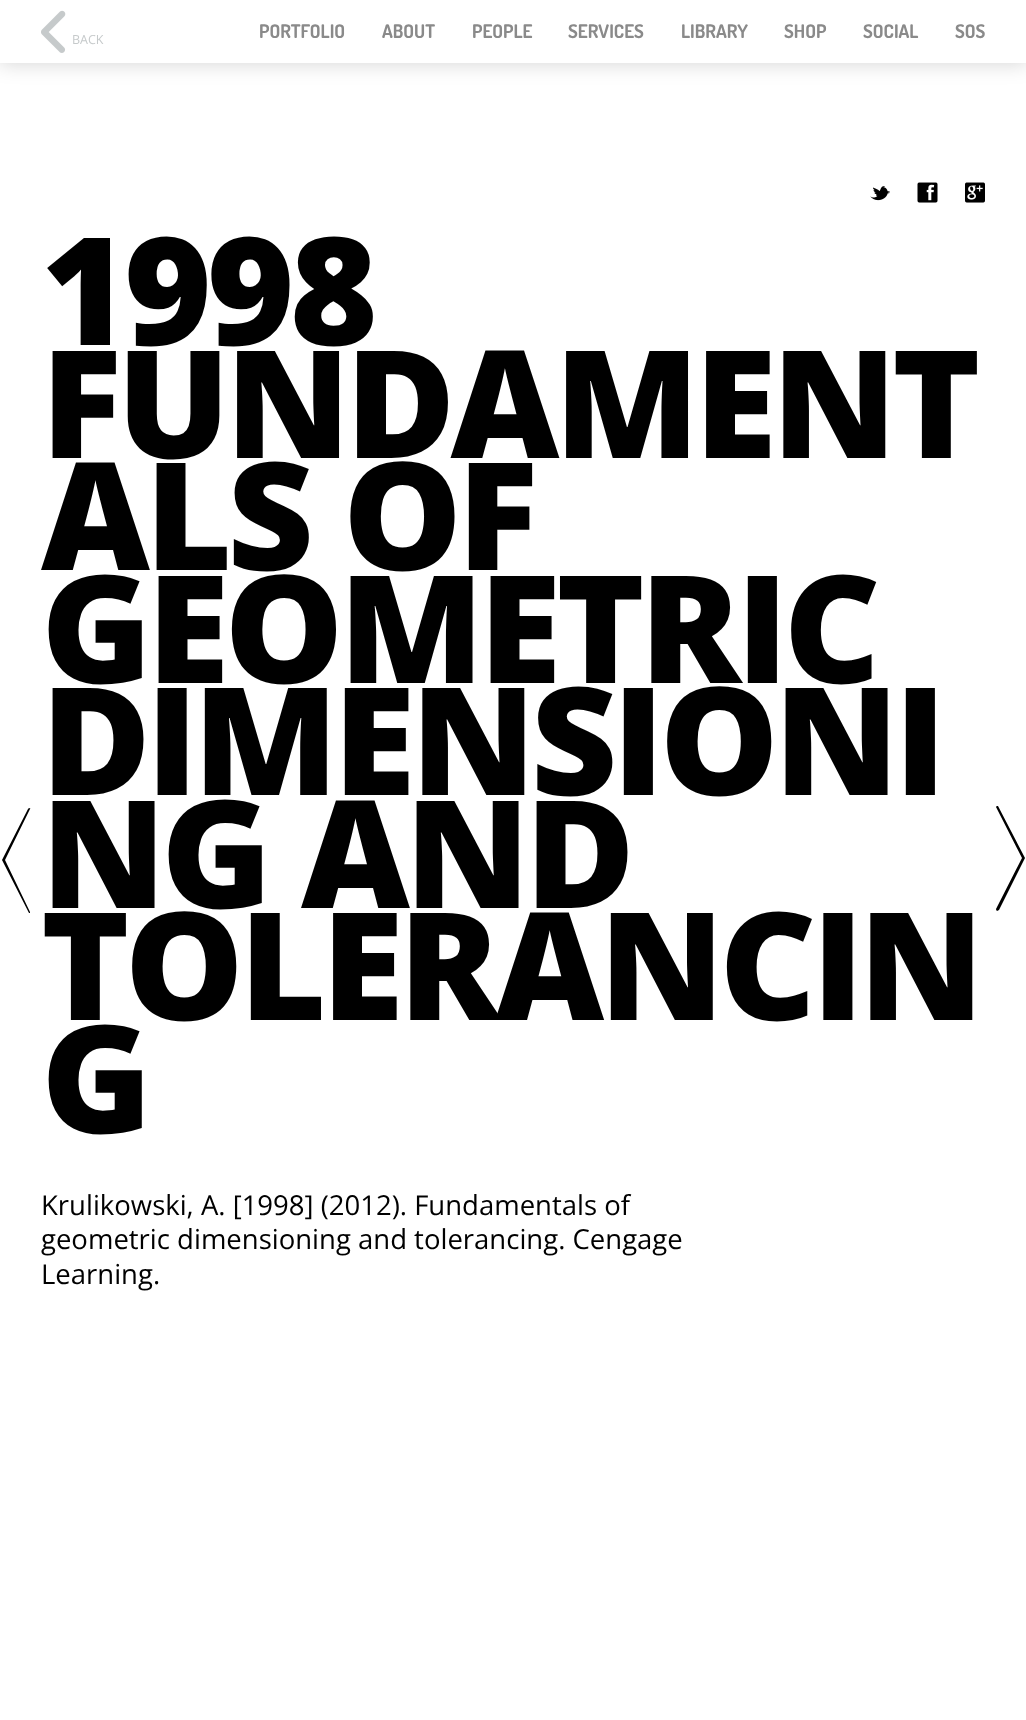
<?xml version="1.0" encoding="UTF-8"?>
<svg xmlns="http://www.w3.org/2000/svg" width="1026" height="1720">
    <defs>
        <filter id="blur1" x="-50%" y="-200%" width="200%" height="500%"><feGaussianBlur stdDeviation="10"/></filter>
    </defs>
    <rect width="100%" height="100%" fill="#FFFFFF"/>
    <rect x="-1" y="-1" width="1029" height="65" fill="#000000" fill-opacity="0.16" filter="url(#blur1)"/>
    <rect x="0" y="0" width="1026" height="63" fill="#FFFFFF"/>
    <image x="41" y="10" width="25" height="43" href="img_01.png"/>
    <text x="72" y="44" font-family="Open Sans" font-size="12.5" fill="#C6CACB">BACK</text>
    <text x="259" y="38" font-family="Dosis" font-size="18.75" font-weight="700" fill="#8A8A8A">PORTFOLIO</text>
    <text x="382" y="38" font-family="Dosis" font-size="18.75" font-weight="700" fill="#8A8A8A">ABOUT</text>
    <text x="472" y="38" font-family="Dosis" font-size="18.75" font-weight="700" fill="#8A8A8A">PEOPLE</text>
    <text x="568" y="38" font-family="Dosis" font-size="18.75" font-weight="700" fill="#8A8A8A">SERVICES</text>
    <text x="681" y="38" font-family="Dosis" font-size="18.75" font-weight="700" fill="#8A8A8A">LIBRARY</text>
    <text x="784" y="38" font-family="Dosis" font-size="18.75" font-weight="700" fill="#8A8A8A">SHOP</text>
    <text x="863" y="38" font-family="Dosis" font-size="18.75" font-weight="700" fill="#8A8A8A">SOCIAL</text>
    <text x="955" y="38" font-family="Dosis" font-size="18.75" font-weight="700" fill="#8A8A8A">SOS</text>
    <image x="870" y="186" width="20" height="15" href="img_02.png"/>
    <image x="917" y="182" width="21" height="21" href="img_03.png"/>
    <image x="965" y="182" width="20" height="21" href="img_04.png"/>
    <text font-family="Open Sans" font-size="150" font-weight="800" letter-spacing="-5" fill="#000000">
        <tspan x="41" y="345">1998</tspan>
        <tspan x="41" y="458">FUNDAMENT</tspan>
        <tspan x="41" y="570">ALS OF</tspan>
        <tspan x="41" y="683">GEOMETRIC</tspan>
        <tspan x="41" y="795">DIMENSIONI</tspan>
        <tspan x="41" y="908">NG AND</tspan>
        <tspan x="41" y="1020">TOLERANCIN</tspan>
        <tspan x="41" y="1133">G</tspan>
    </text>
    <text font-family="Open Sans" font-size="27.5" fill="#000000">
        <tspan x="41" y="1215">Krulikowski, A. [1998] (2012). Fundamentals of</tspan>
        <tspan x="41" y="1249">geometric dimensioning and tolerancing. Cengage</tspan>
        <tspan x="41" y="1284">Learning.</tspan>
    </text>
    <path d="M 29 808 C 30 808 31 809 30 809 L 5 860 L 30 912 C 30 913 30 913 29 913 L 2 860 L 28 809 Z" fill="#000000"/>
    <path d="M 997 911 C 997 911 996 910 996 909 L 1022 858 L 996 807 C 996 806 997 806 998 806 L 1025 858 L 999 910 Z" fill="#000000"/>
</svg>
